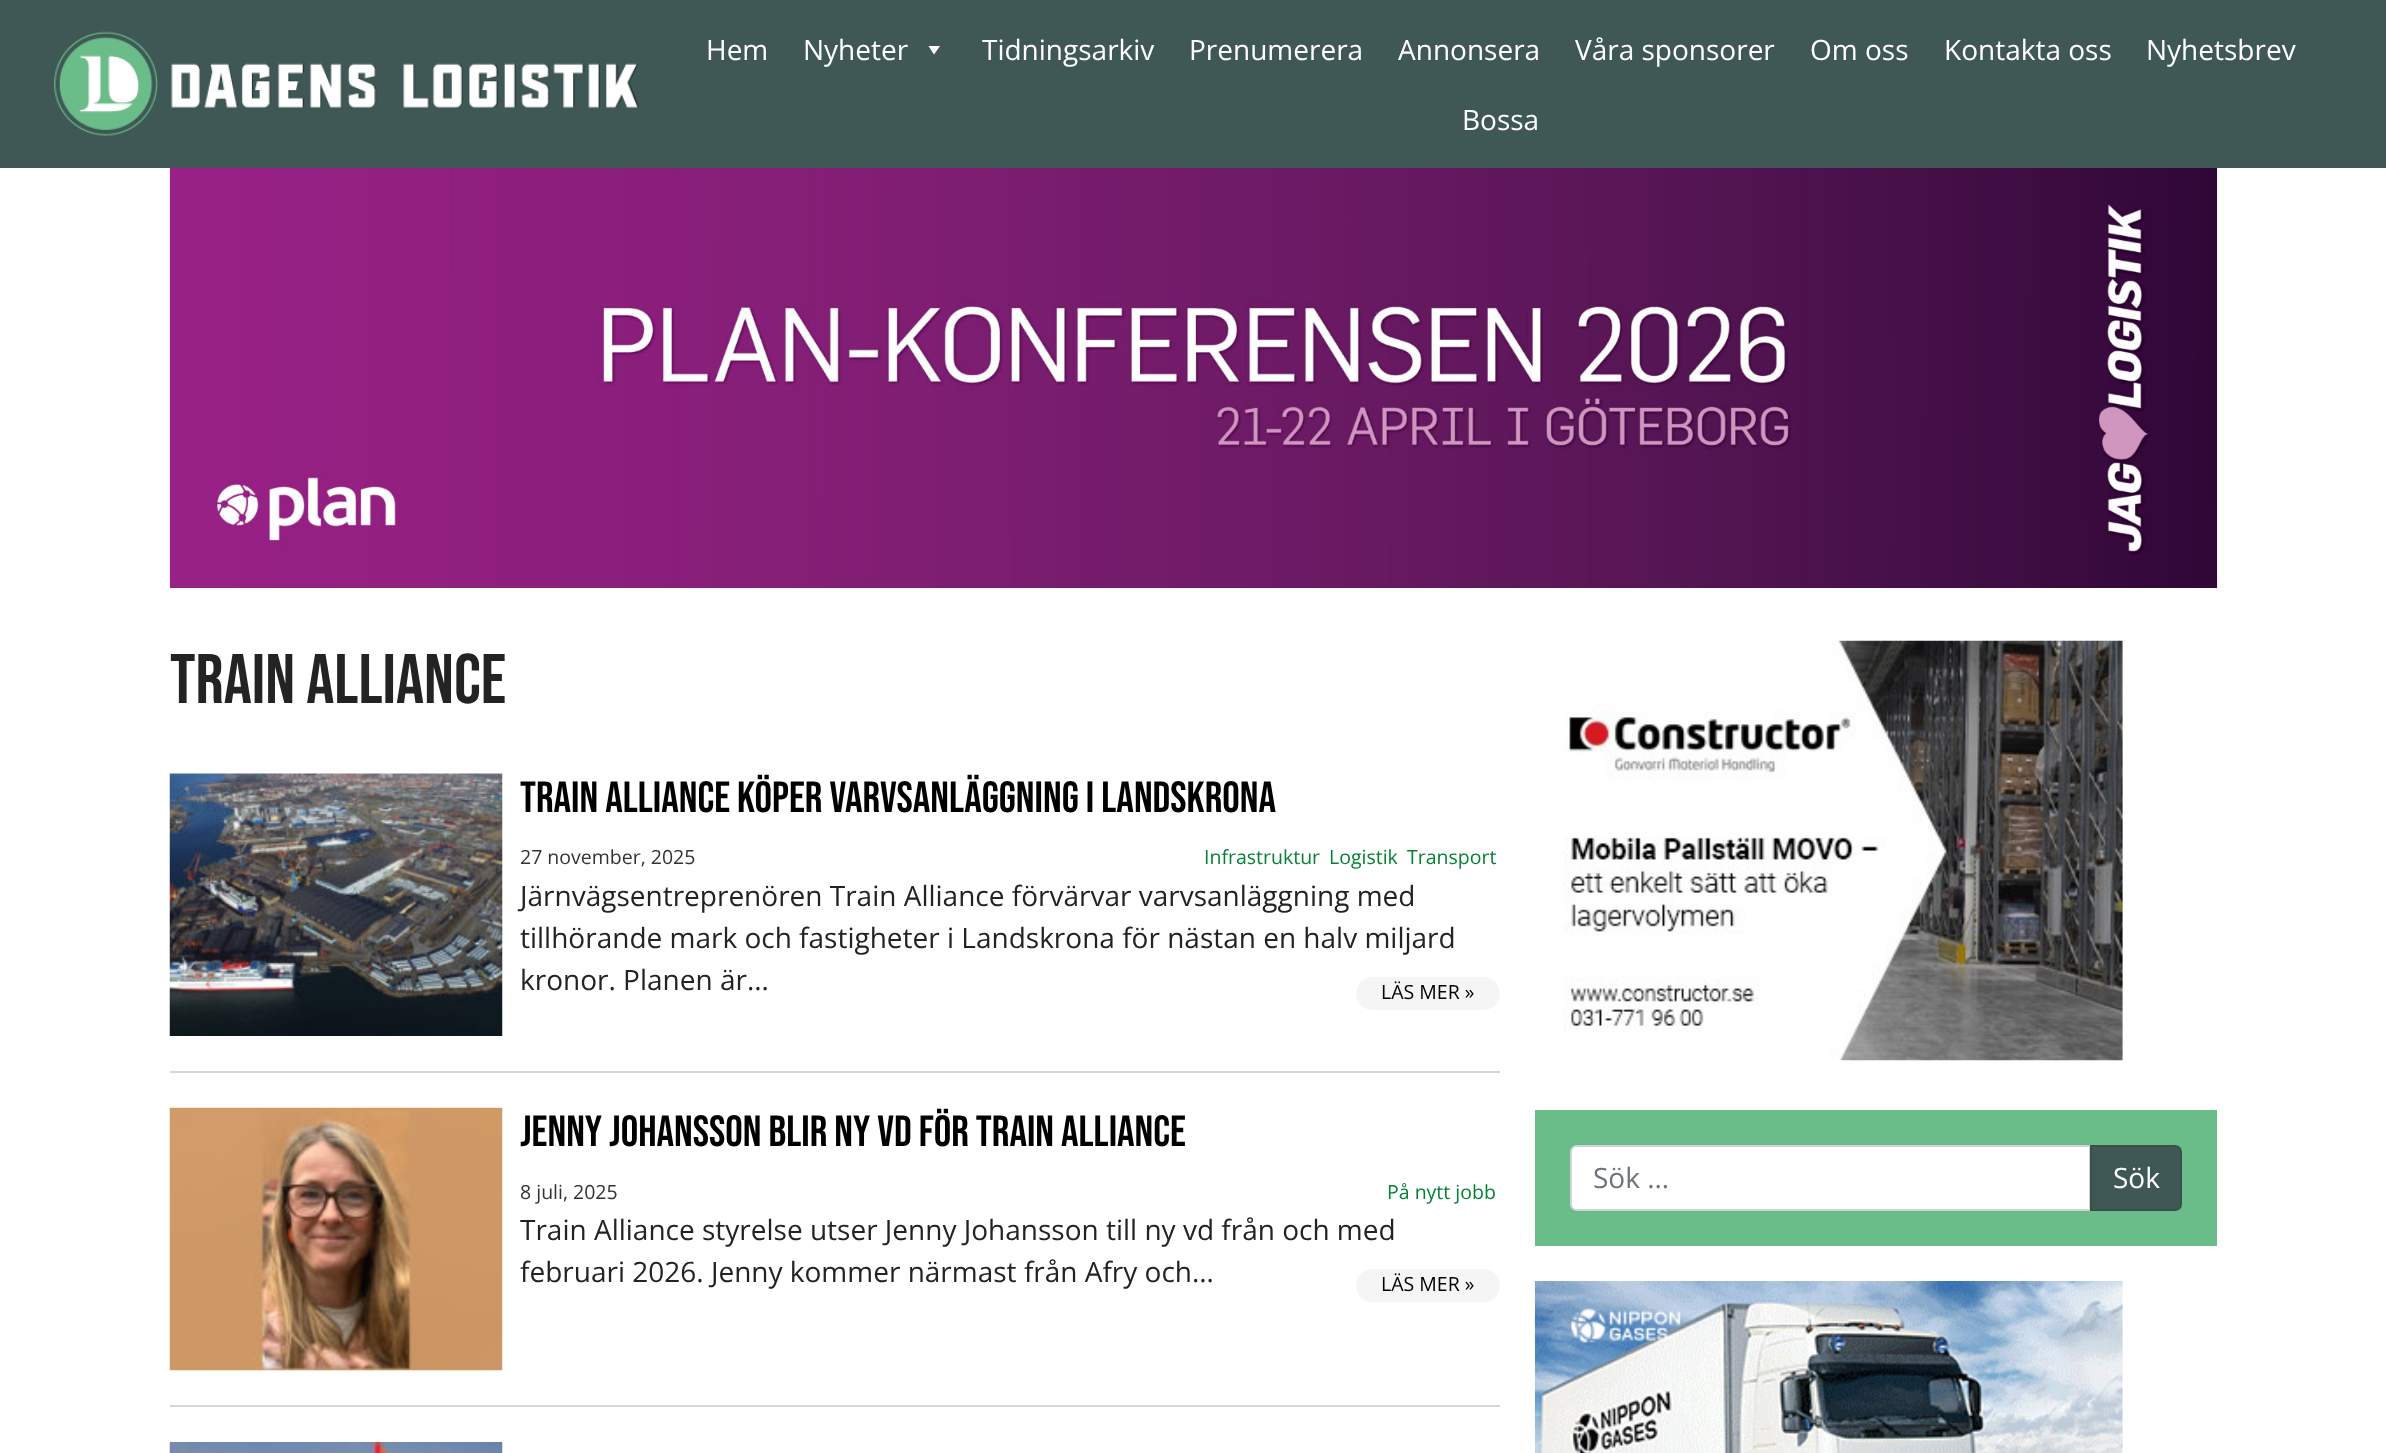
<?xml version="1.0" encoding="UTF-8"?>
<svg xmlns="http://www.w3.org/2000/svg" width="2386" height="1453">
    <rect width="100%" height="100%" fill="#FFFFFF"/>
    <rect x="0" y="0" width="2386" height="168" fill="#3F5856"/>
    <image x="54" y="31" width="586" height="105" href="img_01.png"/>
    <text x="706" y="60" font-family="Open Sans" font-size="28" fill="#FFFFFF">Hem</text>
    <text x="803" y="60" font-family="Open Sans" font-size="28" fill="#FFFFFF">Nyheter</text>
    <path d="M 940 46 L 934 54.5 L 928.5 46 Z" fill="#FFFFFF"/>
    <text x="982" y="60" font-family="Open Sans" font-size="28" fill="#FFFFFF">Tidningsarkiv</text>
    <text x="1189" y="60" font-family="Open Sans" font-size="28" fill="#FFFFFF">Prenumerera</text>
    <text x="1398" y="60" font-family="Open Sans" font-size="28" fill="#FFFFFF">Annonsera</text>
    <text x="1575" y="60" font-family="Open Sans" font-size="28" fill="#FFFFFF">Våra sponsorer</text>
    <text x="1810" y="60" font-family="Open Sans" font-size="28" fill="#FFFFFF">Om oss</text>
    <text x="1944" y="60" font-family="Open Sans" font-size="28" fill="#FFFFFF">Kontakta oss</text>
    <text x="2146" y="60" font-family="Open Sans" font-size="28" fill="#FFFFFF">Nyhetsbrev</text>
    <text x="1462" y="130" font-family="Open Sans" font-size="28" fill="#FFFFFF">Bossa</text>
    <image x="169" y="168" width="2049" height="420" href="img_02.png"/>
    <text x="170" y="703" font-family="Bebas Neue" font-size="70" fill="#232323">Train Alliance</text>
    <rect x="170" y="1071" width="1330" height="2" fill="#D5D5D5"/>
    <image x="169" y="773" width="334" height="263" href="img_03.png"/>
    <text x="520" y="812" font-family="Bebas Neue" font-size="43.75" fill="#000000">Train Alliance köper varvsanläggning i Landskrona</text>
    <text x="520" y="864" font-family="Open Sans" font-size="19.5" fill="#333333">27 november, 2025</text>
    <text x="1204" y="864" font-family="Open Sans" font-size="19.5" fill="#058234">Infrastruktur</text>
    <text x="1329" y="864" font-family="Open Sans" font-size="19.5" fill="#058234">Logistik</text>
    <text x="1407" y="864" font-family="Open Sans" font-size="19.5" fill="#058234">Transport</text>
    <text font-family="Open Sans" font-size="28" fill="#232323">
        <tspan x="520" y="906">Järnvägsentreprenören Train Alliance förvärvar varvsanläggning med</tspan>
        <tspan x="520" y="948">tillhörande mark och fastigheter i Landskrona för nästan en halv miljard</tspan>
        <tspan x="520" y="990">kronor. Planen är…</tspan>
    </text>
    <rect x="1356" y="977" width="144" height="33" rx="16.5" fill="#F5F5F5"/>
    <text x="1381" y="999" font-family="Open Sans" font-size="19.5" fill="#000000">LÄS MER »</text>
    <rect x="170" y="1405" width="1330" height="2" fill="#D5D5D5"/>
    <image x="169" y="1107" width="334" height="264" href="img_04.png"/>
    <text x="520" y="1146" font-family="Bebas Neue" font-size="43.75" fill="#000000">Jenny Johansson blir ny vd för Train Alliance</text>
    <text x="520" y="1199" font-family="Open Sans" font-size="19.5" fill="#333333">8 juli, 2025</text>
    <text x="1387" y="1199" font-family="Open Sans" font-size="19.5" fill="#058234">På nytt jobb</text>
    <text font-family="Open Sans" font-size="28" fill="#232323">
        <tspan x="520" y="1240">Train Alliance styrelse utser Jenny Johansson till ny vd från och med</tspan>
        <tspan x="520" y="1282">februari 2026. Jenny kommer närmast från Afry och…</tspan>
    </text>
    <rect x="1356" y="1269" width="144" height="33" rx="16.5" fill="#F5F5F5"/>
    <text x="1381" y="1291" font-family="Open Sans" font-size="19.5" fill="#000000">LÄS MER »</text>
    <image x="169" y="1442" width="334" height="11" href="img_05.png"/>
    <image x="1563" y="640" width="560" height="421" href="img_06.png"/>
    <rect x="1535" y="1110" width="682" height="136" fill="#6ABC89"/>
    <path d="M 1577 1146 H 2090 V 1210 H 1577 C 1573.5 1210 1571 1207.5 1571 1204 V 1152 C 1571 1148.5 1573.5 1146 1577 1146 Z" fill="#FFFFFF" stroke="#CED4DA" stroke-width="2"/>
    <text x="1593" y="1188" font-family="Open Sans" font-size="28" fill="#6C757D">Sök …</text>
    <path d="M 2091 1146 H 2175 C 2178.5 1146 2181 1148.5 2181 1152 V 1204 C 2181 1207.5 2178.5 1210 2175 1210 H 2091 Z" fill="#3F5856" stroke="#394F4D" stroke-width="2"/>
    <text x="2113" y="1188" font-family="Open Sans" font-size="28" fill="#FFFFFF">Sök</text>
    <image x="1534" y="1281" width="589" height="172" href="img_07.png"/>
</svg>
